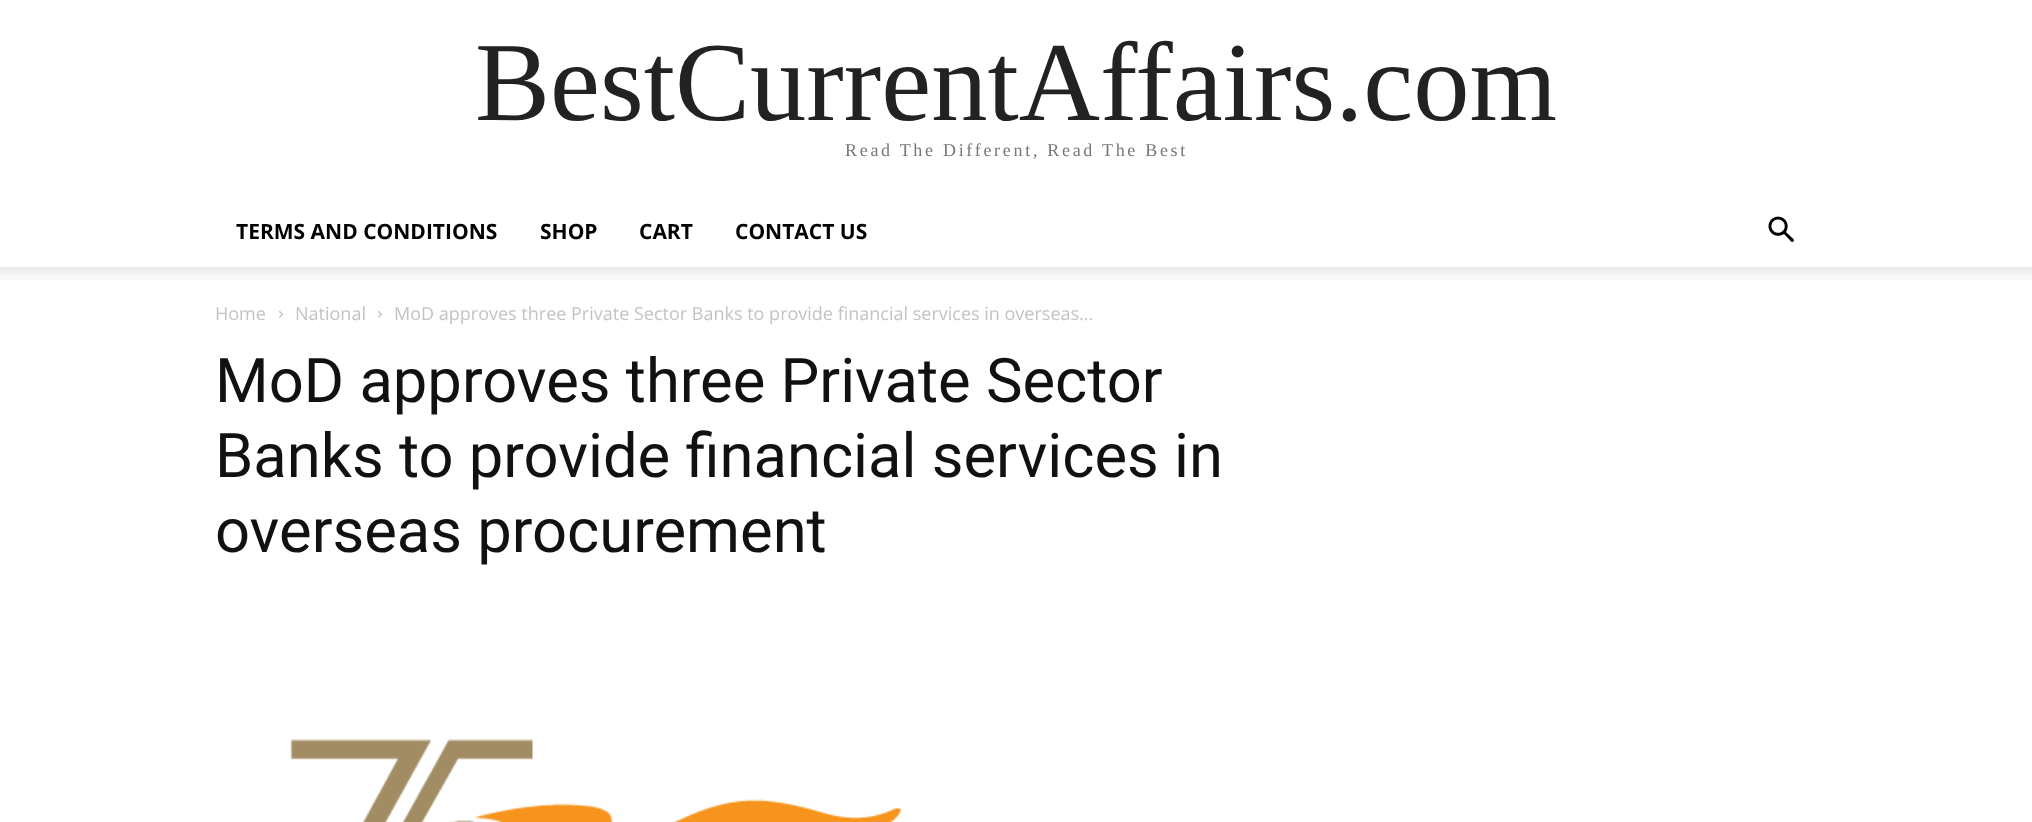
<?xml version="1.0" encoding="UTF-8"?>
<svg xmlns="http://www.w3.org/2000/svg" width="2032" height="822">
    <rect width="100%" height="100%" fill="#FFFFFF"/>
    <text x="475" y="120" font-family="Liberation Serif" font-size="112.5" fill="#222222">BestCurrentAffairs.com</text>
    <text x="845" y="156" font-family="Liberation Serif" font-size="18" letter-spacing="2.7" fill="#777777">Read The Different, Read The Best</text>
    <text x="236" y="239" font-family="Open Sans" font-size="21" font-weight="700" fill="#000000">TERMS AND CONDITIONS</text>
    <text x="540" y="239" font-family="Open Sans" font-size="21" font-weight="700" fill="#000000">SHOP</text>
    <text x="639" y="239" font-family="Open Sans" font-size="21" font-weight="700" fill="#000000">CART</text>
    <text x="735" y="239" font-family="Open Sans" font-size="21" font-weight="700" fill="#000000">CONTACT US</text>
    <image x="1768" y="216" width="26" height="26" href="img_01.png"/>
    <image x="0" y="267" width="2032" height="13" href="img_02.png"/>
    <text x="215" y="320" font-family="Open Sans" font-size="18" fill="#C3C3C3">Home</text>
    <image x="279" y="311" width="4" height="7" href="img_03.png"/>
    <text x="295" y="320" font-family="Open Sans" font-size="18" fill="#C3C3C3">National</text>
    <image x="378" y="311" width="4" height="7" href="img_03.png"/>
    <text x="394" y="320" font-family="Open Sans" font-size="18" fill="#C3C3C3">MoD approves three Private Sector Banks to provide financial services in overseas...</text>
    <text font-family="Roboto" font-size="61.5" fill="#111111">
        <tspan x="215" y="402">MoD approves three Private Sector</tspan>
        <tspan x="215" y="477">Banks to provide financial services in</tspan>
        <tspan x="215" y="552">overseas procurement</tspan>
    </text>
    <image x="290" y="739" width="612" height="83" href="img_04.png"/>
</svg>
